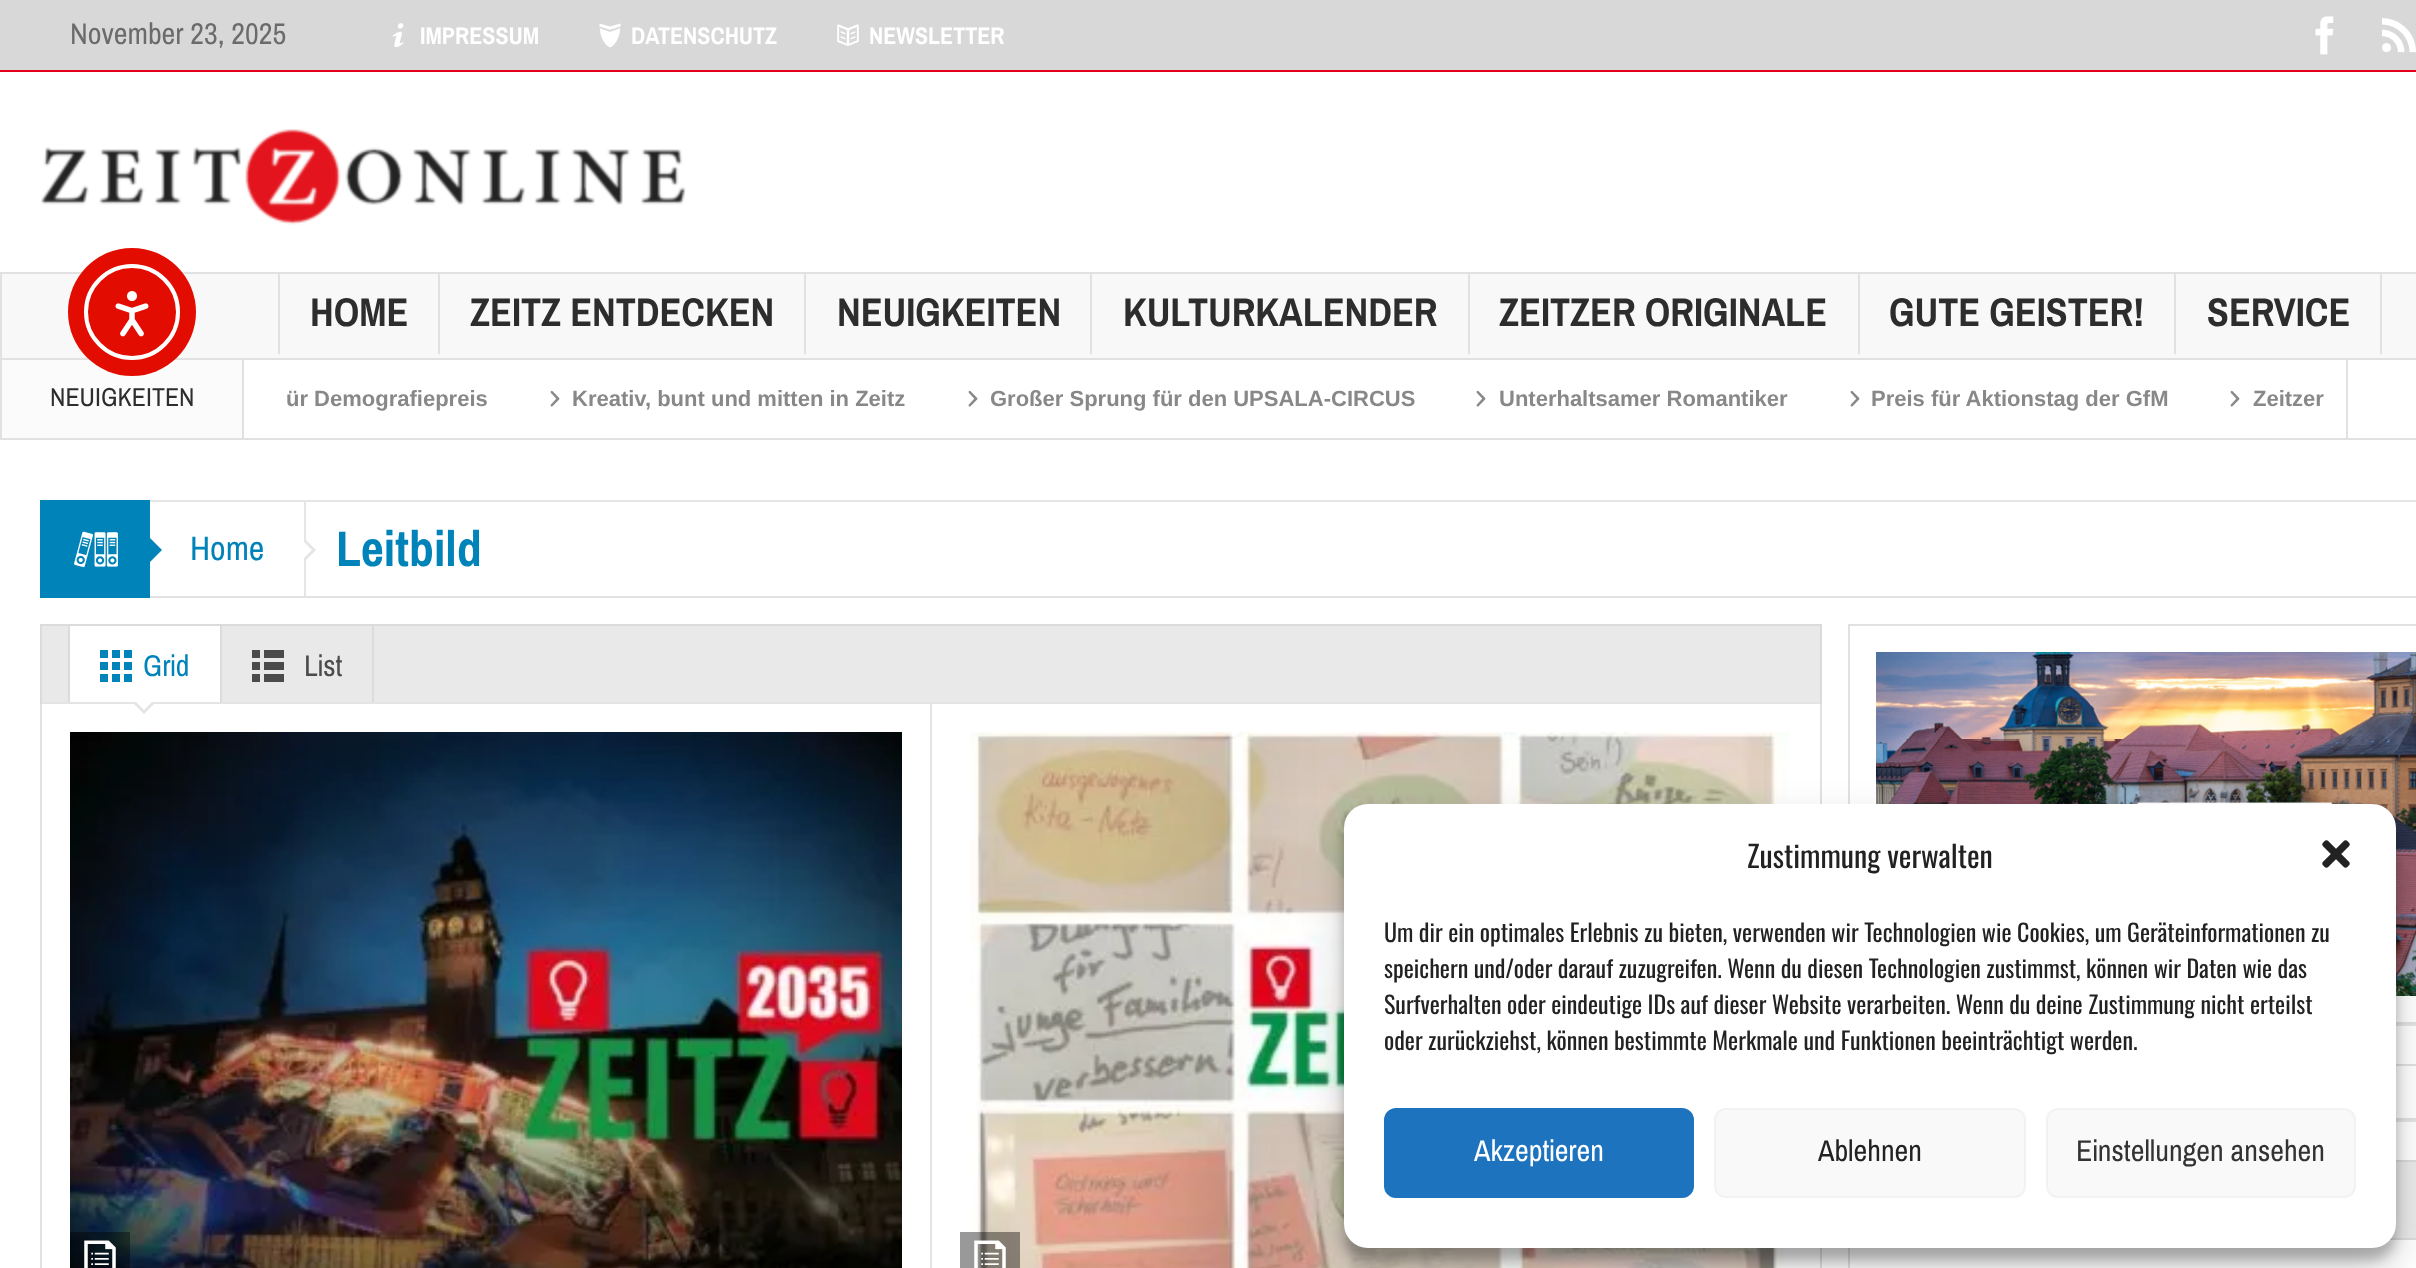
<?xml version="1.0" encoding="UTF-8"?>
<svg xmlns="http://www.w3.org/2000/svg" width="2416" height="1268">
    <defs>
        <filter id="blur1" x="-50%" y="-200%" width="200%" height="500%"><feGaussianBlur stdDeviation="6"/></filter>
        <filter id="blur2" x="-50%" y="-200%" width="200%" height="500%"><feGaussianBlur stdDeviation="20"/></filter>
    </defs>
    <rect width="100%" height="100%" fill="#FFFFFF"/>
    <rect x="0" y="0" width="2416" height="70" fill="#D8D8D8"/>
    <rect x="0" y="70" width="2416" height="2" fill="#E2001A"/>
    <text x="70" y="44" font-family="Archivo Narrow" font-size="30" fill="#6B6B6B">November 23, 2025</text>
    <image x="392" y="23" width="12" height="24" href="img_01.png"/>
    <text x="420" y="44" font-family="Archivo Narrow" font-size="24" font-weight="700" fill="#FFFFFF">IMPRESSUM</text>
    <image x="599" y="23" width="22" height="25" href="img_02.png"/>
    <text x="631" y="44" font-family="Archivo Narrow" font-size="24" font-weight="700" fill="#FFFFFF">DATENSCHUTZ</text>
    <image x="837" y="24" width="22" height="22" href="img_03.png"/>
    <text x="869" y="44" font-family="Archivo Narrow" font-size="24" font-weight="700" fill="#FFFFFF">NEWSLETTER</text>
    <image x="2315" y="16" width="19" height="39" href="img_04.png"/>
    <image x="2382" y="18" width="34" height="35" href="img_05.png"/>
    <image x="41" y="129" width="645" height="96" href="img_06.png"/>
    <rect x="1" y="273" width="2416" height="86" fill="#F8F8F8" stroke="#E1E1E1" stroke-width="2"/>
    <rect x="438" y="274" width="2" height="80" fill="#E1E1E1"/>
    <rect x="278" y="274" width="2" height="80" fill="#E1E1E1"/>
    <text x="310" y="326" font-family="Archivo Narrow" font-size="40" font-weight="700" fill="#2D2D2D">HOME</text>
    <rect x="804" y="274" width="2" height="80" fill="#E1E1E1"/>
    <text x="470" y="326" font-family="Archivo Narrow" font-size="40" font-weight="700" fill="#2D2D2D">ZEITZ ENTDECKEN</text>
    <rect x="1090" y="274" width="2" height="80" fill="#E1E1E1"/>
    <text x="837" y="326" font-family="Archivo Narrow" font-size="40" font-weight="700" fill="#2D2D2D">NEUIGKEITEN</text>
    <rect x="1468" y="274" width="2" height="80" fill="#E1E1E1"/>
    <text x="1123" y="326" font-family="Archivo Narrow" font-size="40" font-weight="700" fill="#2D2D2D">KULTURKALENDER</text>
    <rect x="1858" y="274" width="2" height="80" fill="#E1E1E1"/>
    <text x="1499" y="326" font-family="Archivo Narrow" font-size="40" font-weight="700" fill="#2D2D2D">ZEITZER ORIGINALE</text>
    <rect x="2174" y="274" width="2" height="80" fill="#E1E1E1"/>
    <text x="1889" y="326" font-family="Archivo Narrow" font-size="40" font-weight="700" fill="#2D2D2D">GUTE GEISTER!</text>
    <rect x="2380" y="274" width="2" height="80" fill="#E1E1E1"/>
    <text x="2207" y="326" font-family="Archivo Narrow" font-size="40" font-weight="700" fill="#2D2D2D">SERVICE</text>
    <rect x="0" y="438" width="2416" height="2" fill="#E1E1E1"/>
    <rect x="2" y="360" width="240" height="78" fill="#FBFBFB"/>
    <rect x="242" y="360" width="2" height="78" fill="#E1E1E1"/>
    <rect x="0" y="360" width="2" height="78" fill="#E1E1E1"/>
    <text x="50" y="406" font-family="Archivo Narrow" font-size="26" fill="#2D2D2D">NEUIGKEITEN</text>
    <rect x="2346" y="360" width="2" height="78" fill="#E1E1E1"/>
    <text x="286" y="406" font-family="Liberation Sans" font-size="22" font-weight="700" fill="#888888">ür Demografiepreis</text>
    <image x="550" y="390" width="10" height="17" href="img_07.png"/>
    <text x="572" y="406" font-family="Liberation Sans" font-size="22" font-weight="700" fill="#888888">Kreativ, bunt und mitten in Zeitz</text>
    <image x="968" y="390" width="10" height="17" href="img_07.png"/>
    <text x="990" y="406" font-family="Liberation Sans" font-size="22" font-weight="700" fill="#888888">Großer Sprung für den UPSALA-CIRCUS</text>
    <image x="1476" y="390" width="10" height="17" href="img_07.png"/>
    <text x="1499" y="406" font-family="Liberation Sans" font-size="22" font-weight="700" fill="#888888">Unterhaltsamer Romantiker</text>
    <image x="1850" y="390" width="10" height="17" href="img_07.png"/>
    <text x="1871" y="406" font-family="Liberation Sans" font-size="22" font-weight="700" fill="#888888">Preis für Aktionstag der GfM</text>
    <image x="2230" y="390" width="10" height="17" href="img_07.png"/>
    <text x="2253" y="406" font-family="Liberation Sans" font-size="22" font-weight="700" fill="#888888">Zeitzer</text>
    <rect x="150" y="500" width="2266" height="2" fill="#E5E5E5"/>
    <rect x="150" y="596" width="2266" height="2" fill="#E1E1E1"/>
    <rect x="40" y="500" width="110" height="98" fill="#0083B9"/>
    <image x="74" y="531" width="44" height="37" href="img_08.png"/>
    <path d="M 150 562 V 538 L 162 550 Z" fill="#0083B9"/>
    <rect x="304" y="502" width="2" height="94" fill="#E5E5E5"/>
    <text x="190" y="560" font-family="Archivo Narrow" font-size="34" fill="#0083B9">Home</text>
    <path d="M 304 562 V 538 L 316 550 Z" fill="#E5E5E5"/>
    <path d="M 304 558 V 542 L 312 550 Z" fill="#FFFFFF"/>
    <text x="336" y="566" font-family="Archivo Narrow" font-size="50" font-weight="700" fill="#0083B9">Leitbild</text>
    <rect x="41" y="625" width="1780" height="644" fill="none" stroke="#E1E1E1" stroke-width="2"/>
    <rect x="41" y="625" width="1780" height="78" fill="#E9E9E9" stroke="#DBDBDB" stroke-width="2"/>
    <rect x="70" y="626" width="150" height="76" fill="#FFFFFF"/>
    <rect x="68" y="626" width="2" height="76" fill="#DBDBDB"/>
    <image x="100" y="650" width="32" height="32" href="img_09.png"/>
    <text x="143" y="676" font-family="Archivo Narrow" font-size="30" fill="#0083B9">Grid</text>
    <rect x="42" y="702" width="1778" height="2" fill="#E4E4E4"/>
    <path d="M 132 702 H 156 L 144 714 Z" fill="#E5E5E5"/>
    <path d="M 136 702 H 152 L 144 710 Z" fill="#FFFFFF"/>
    <rect x="372" y="626" width="2" height="76" fill="#DBDBDB"/>
    <rect x="220" y="626" width="2" height="76" fill="#DBDBDB"/>
    <image x="252" y="650" width="32" height="32" href="img_10.png"/>
    <text x="304" y="676" font-family="Archivo Narrow" font-size="30" fill="#4B4B4B">List</text>
    <image x="70" y="732" width="832" height="536" href="img_11.png"/>
    <rect x="70" y="1232" width="60" height="36" fill="#000000" fill-opacity="0.4"/>
    <image x="84" y="1240" width="32" height="28" href="img_12.png"/>
    <rect x="930" y="702" width="2" height="566" fill="#E4E4E4"/>
    <image x="970" y="732" width="819" height="536" href="img_13.png"/>
    <rect x="960" y="1232" width="60" height="36" fill="#000000" fill-opacity="0.4"/>
    <image x="974" y="1240" width="32" height="28" href="img_14.png"/>
    <rect x="2396" y="1024" width="20" height="2" fill="#E5E5E5"/>
    <rect x="1849" y="625" width="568" height="398" fill="none" stroke="#E1E1E1" stroke-width="2"/>
    <image x="1876" y="652" width="540" height="344" href="img_15.png"/>
    <rect x="2396" y="1120" width="20" height="2" fill="#E5E5E5"/>
    <rect x="1849" y="1065" width="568" height="54" fill="none" stroke="#E1E1E1" stroke-width="2"/>
    <rect x="1849" y="1161" width="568" height="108" fill="none" stroke="#E1E1E1" stroke-width="2"/>
    <rect x="2391" y="1162" width="25" height="76" fill="#E9E9E9"/>
    <rect x="1849" y="1161" width="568" height="78" fill="none" stroke="#DBDBDB" stroke-width="2"/>
    <circle cx="132" cy="312" r="64" fill="#E30C00"/>
    <circle cx="132" cy="312" r="46" fill="none" stroke="#FFFFFF" stroke-width="4"/>
    <image x="115" y="291" width="34" height="46" href="img_16.png"/>
    <rect x="1344" y="816" width="1052" height="444" rx="24" fill="#000000" fill-opacity="0.23" filter="url(#blur1)"/>
    <rect x="1344" y="824" width="1052" height="444" rx="24" fill="#000000" fill-opacity="0.19" filter="url(#blur2)"/>
    <rect x="1344" y="804" width="1052" height="444" rx="24" fill="#FFFFFF"/>
    <text x="1747" y="868" font-family="Oswald" font-size="30" fill="#222222">Zustimmung verwalten</text>
    <image x="2322" y="840" width="28" height="28" href="img_17.png"/>
    <text font-family="Oswald" font-size="24" fill="#222222">
        <tspan x="1384" y="942">Um dir ein optimales Erlebnis zu bieten, verwenden wir Technologien wie Cookies, um Geräteinformationen zu</tspan>
        <tspan x="1384" y="978">speichern und/oder darauf zuzugreifen. Wenn du diesen Technologien zustimmst, können wir Daten wie das</tspan>
        <tspan x="1384" y="1014">Surfverhalten oder eindeutige IDs auf dieser Website verarbeiten. Wenn du deine Zustimmung nicht erteilst</tspan>
        <tspan x="1384" y="1050">oder zurückziehst, können bestimmte Merkmale und Funktionen beeinträchtigt werden.</tspan>
    </text>
    <rect x="1385" y="1109" width="308" height="88" rx="11" fill="#1E73BE" stroke="#1E73BE" stroke-width="2"/>
    <text x="1474" y="1161" font-family="Archivo Narrow" font-size="30" fill="#FFFFFF">Akzeptieren</text>
    <rect x="1715" y="1109" width="310" height="88" rx="11" fill="#F9F9F9" stroke="#F2F2F2" stroke-width="2"/>
    <text x="1818" y="1161" font-family="Archivo Narrow" font-size="30" fill="#222222">Ablehnen</text>
    <rect x="2047" y="1109" width="308" height="88" rx="11" fill="#F9F9F9" stroke="#F2F2F2" stroke-width="2"/>
    <text x="2076" y="1161" font-family="Archivo Narrow" font-size="30" fill="#333333">Einstellungen ansehen</text>
</svg>
